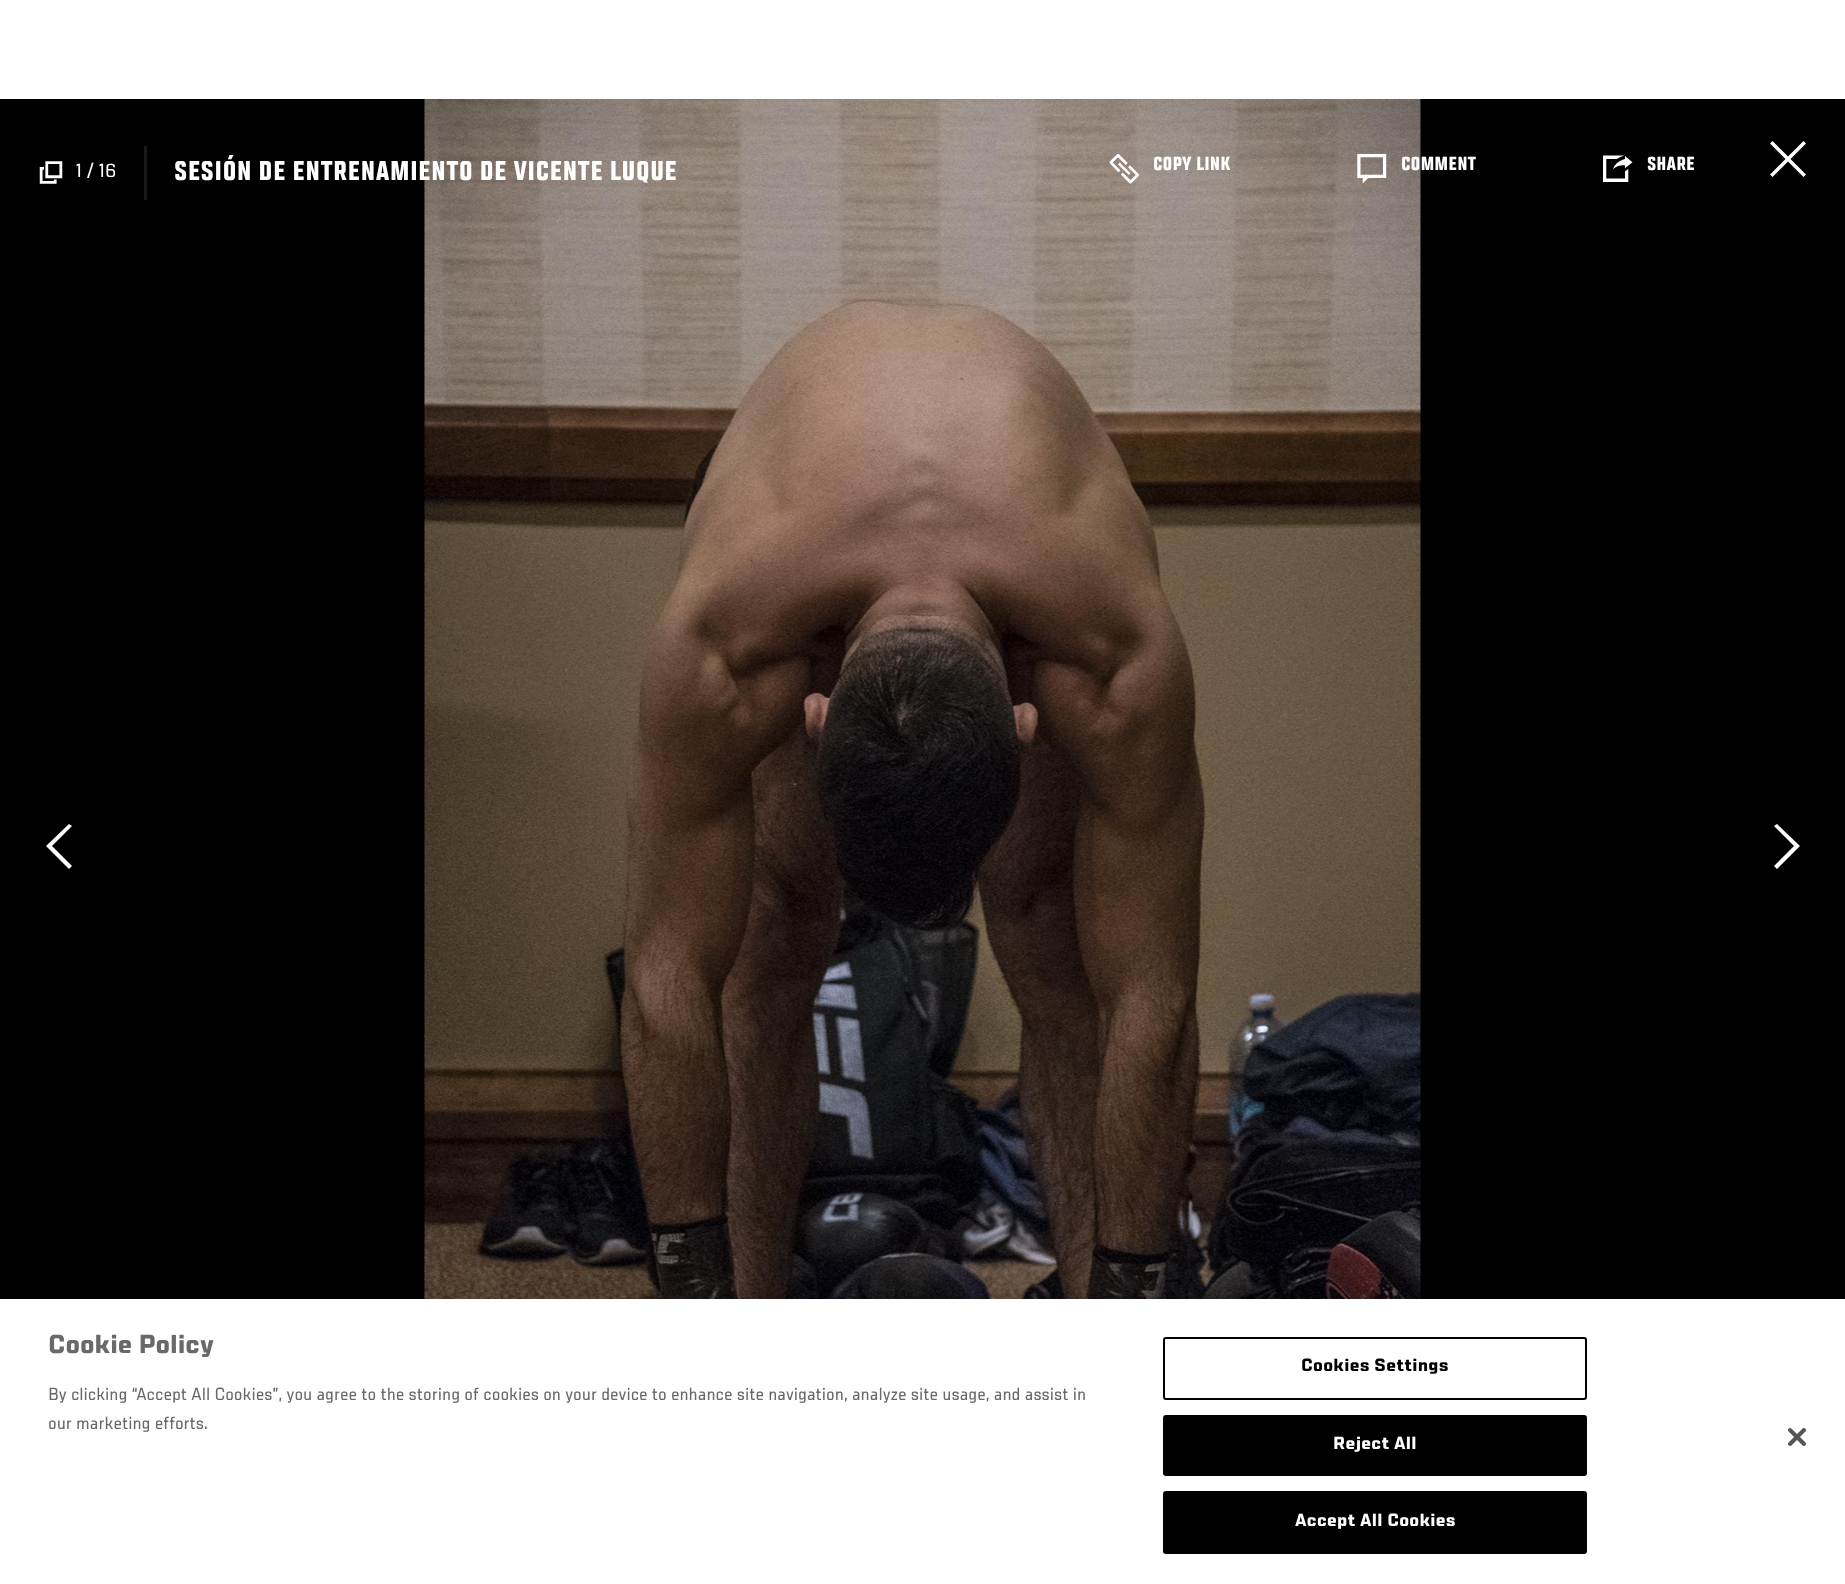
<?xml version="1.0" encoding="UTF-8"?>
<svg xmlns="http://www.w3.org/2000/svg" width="1845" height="1584">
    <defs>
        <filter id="blur1" x="-50%" y="-200%" width="200%" height="500%"><feGaussianBlur stdDeviation="13.5"/></filter>
    </defs>
    <rect width="100%" height="100%" fill="#FFFFFF"/>
    <rect x="0" y="99" width="1845" height="1200" fill="#000000"/>
    <path d="M 72 866 L 69 869 L 46 846 L 69 824 L 72 826 L 52 846 Z" fill="#FFFFFF"/>
    <image x="424" y="99" width="997" height="1200" href="img_01.png"/>
    <path d="M 1794 846 L 1774 826 L 1777 824 L 1800 846 L 1777 869 L 1774 866 Z" fill="#FFFFFF"/>
    <image x="39" y="161" width="24" height="23" href="img_02.png"/>
    <text x="76" y="177" font-family="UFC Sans" font-size="21" fill="#FFFFFF">1 / 16</text>
    <rect x="144" y="146" width="3" height="54" fill="#1A1A1A"/>
    <text x="174" y="180" font-family="UFC Sans" font-size="30" font-weight="700" letter-spacing="0.3" fill="#FFFFFF">SESIÓN DE ENTRENAMIENTO DE VICENTE LUQUE</text>
    <image x="1109" y="154" width="30" height="30" href="img_03.png"/>
    <text x="1153" y="170" font-family="UFC Sans" font-size="21" font-weight="700" fill="#FFFFFF">COPY LINK</text>
    <image x="1357" y="154" width="30" height="30" href="img_04.png"/>
    <text x="1401" y="170" font-family="UFC Sans" font-size="21" font-weight="700" fill="#FFFFFF">COMMENT</text>
    <image x="1603" y="155" width="30" height="27" href="img_05.png"/>
    <text x="1647" y="170" font-family="UFC Sans" font-size="21" font-weight="700" fill="#FFFFFF">SHARE</text>
    <path d="M 1803.5 141 L 1806 143.5 L 1790.5 159 L 1806 174.5 L 1803.5 177 L 1788 161.5 L 1772.5 177 L 1770 174.5 L 1785.5 159 L 1770 143.5 L 1772.5 141 L 1788 156.5 Z" fill="#FFFFFF"/>
    <rect x="0" y="1299" width="1845" height="285" fill="#000000" fill-opacity="0.2" filter="url(#blur1)"/>
    <rect x="0" y="1299" width="1845" height="285" fill="#FFFFFF"/>
    <text x="48" y="1353" font-family="'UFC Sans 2'" font-size="28.75" font-weight="700" fill="#696969">Cookie Policy</text>
    <text font-family="UFC Sans" font-size="19.5" fill="#696969">
        <tspan x="48" y="1400">By clicking “Accept All Cookies”, you agree to the storing of cookies on your device to enhance site navigation, analyze site usage, and assist in</tspan>
        <tspan x="48" y="1429">our marketing efforts.</tspan>
    </text>
    <rect x="1164" y="1338" width="422" height="61" rx="2" fill="none" stroke="#000000" stroke-width="2"/>
    <text x="1301" y="1371" font-family="'UFC Sans 2'" font-size="19.5" font-weight="700" letter-spacing="0.25" fill="#000000">Cookies Settings</text>
    <rect x="1164" y="1416" width="422" height="59" rx="2" fill="#000000" stroke="#000000" stroke-width="2"/>
    <text x="1333" y="1449" font-family="'UFC Sans 2'" font-size="19.5" font-weight="700" letter-spacing="0.25" fill="#FFFFFF">Reject All</text>
    <rect x="1164" y="1492" width="422" height="61" rx="2" fill="#000000" stroke="#000000" stroke-width="2"/>
    <text x="1295" y="1526" font-family="'UFC Sans 2'" font-size="19.5" font-weight="700" letter-spacing="0.25" fill="#FFFFFF">Accept All Cookies</text>
    <image x="1788" y="1428" width="18" height="18" href="img_06.png"/>
</svg>
